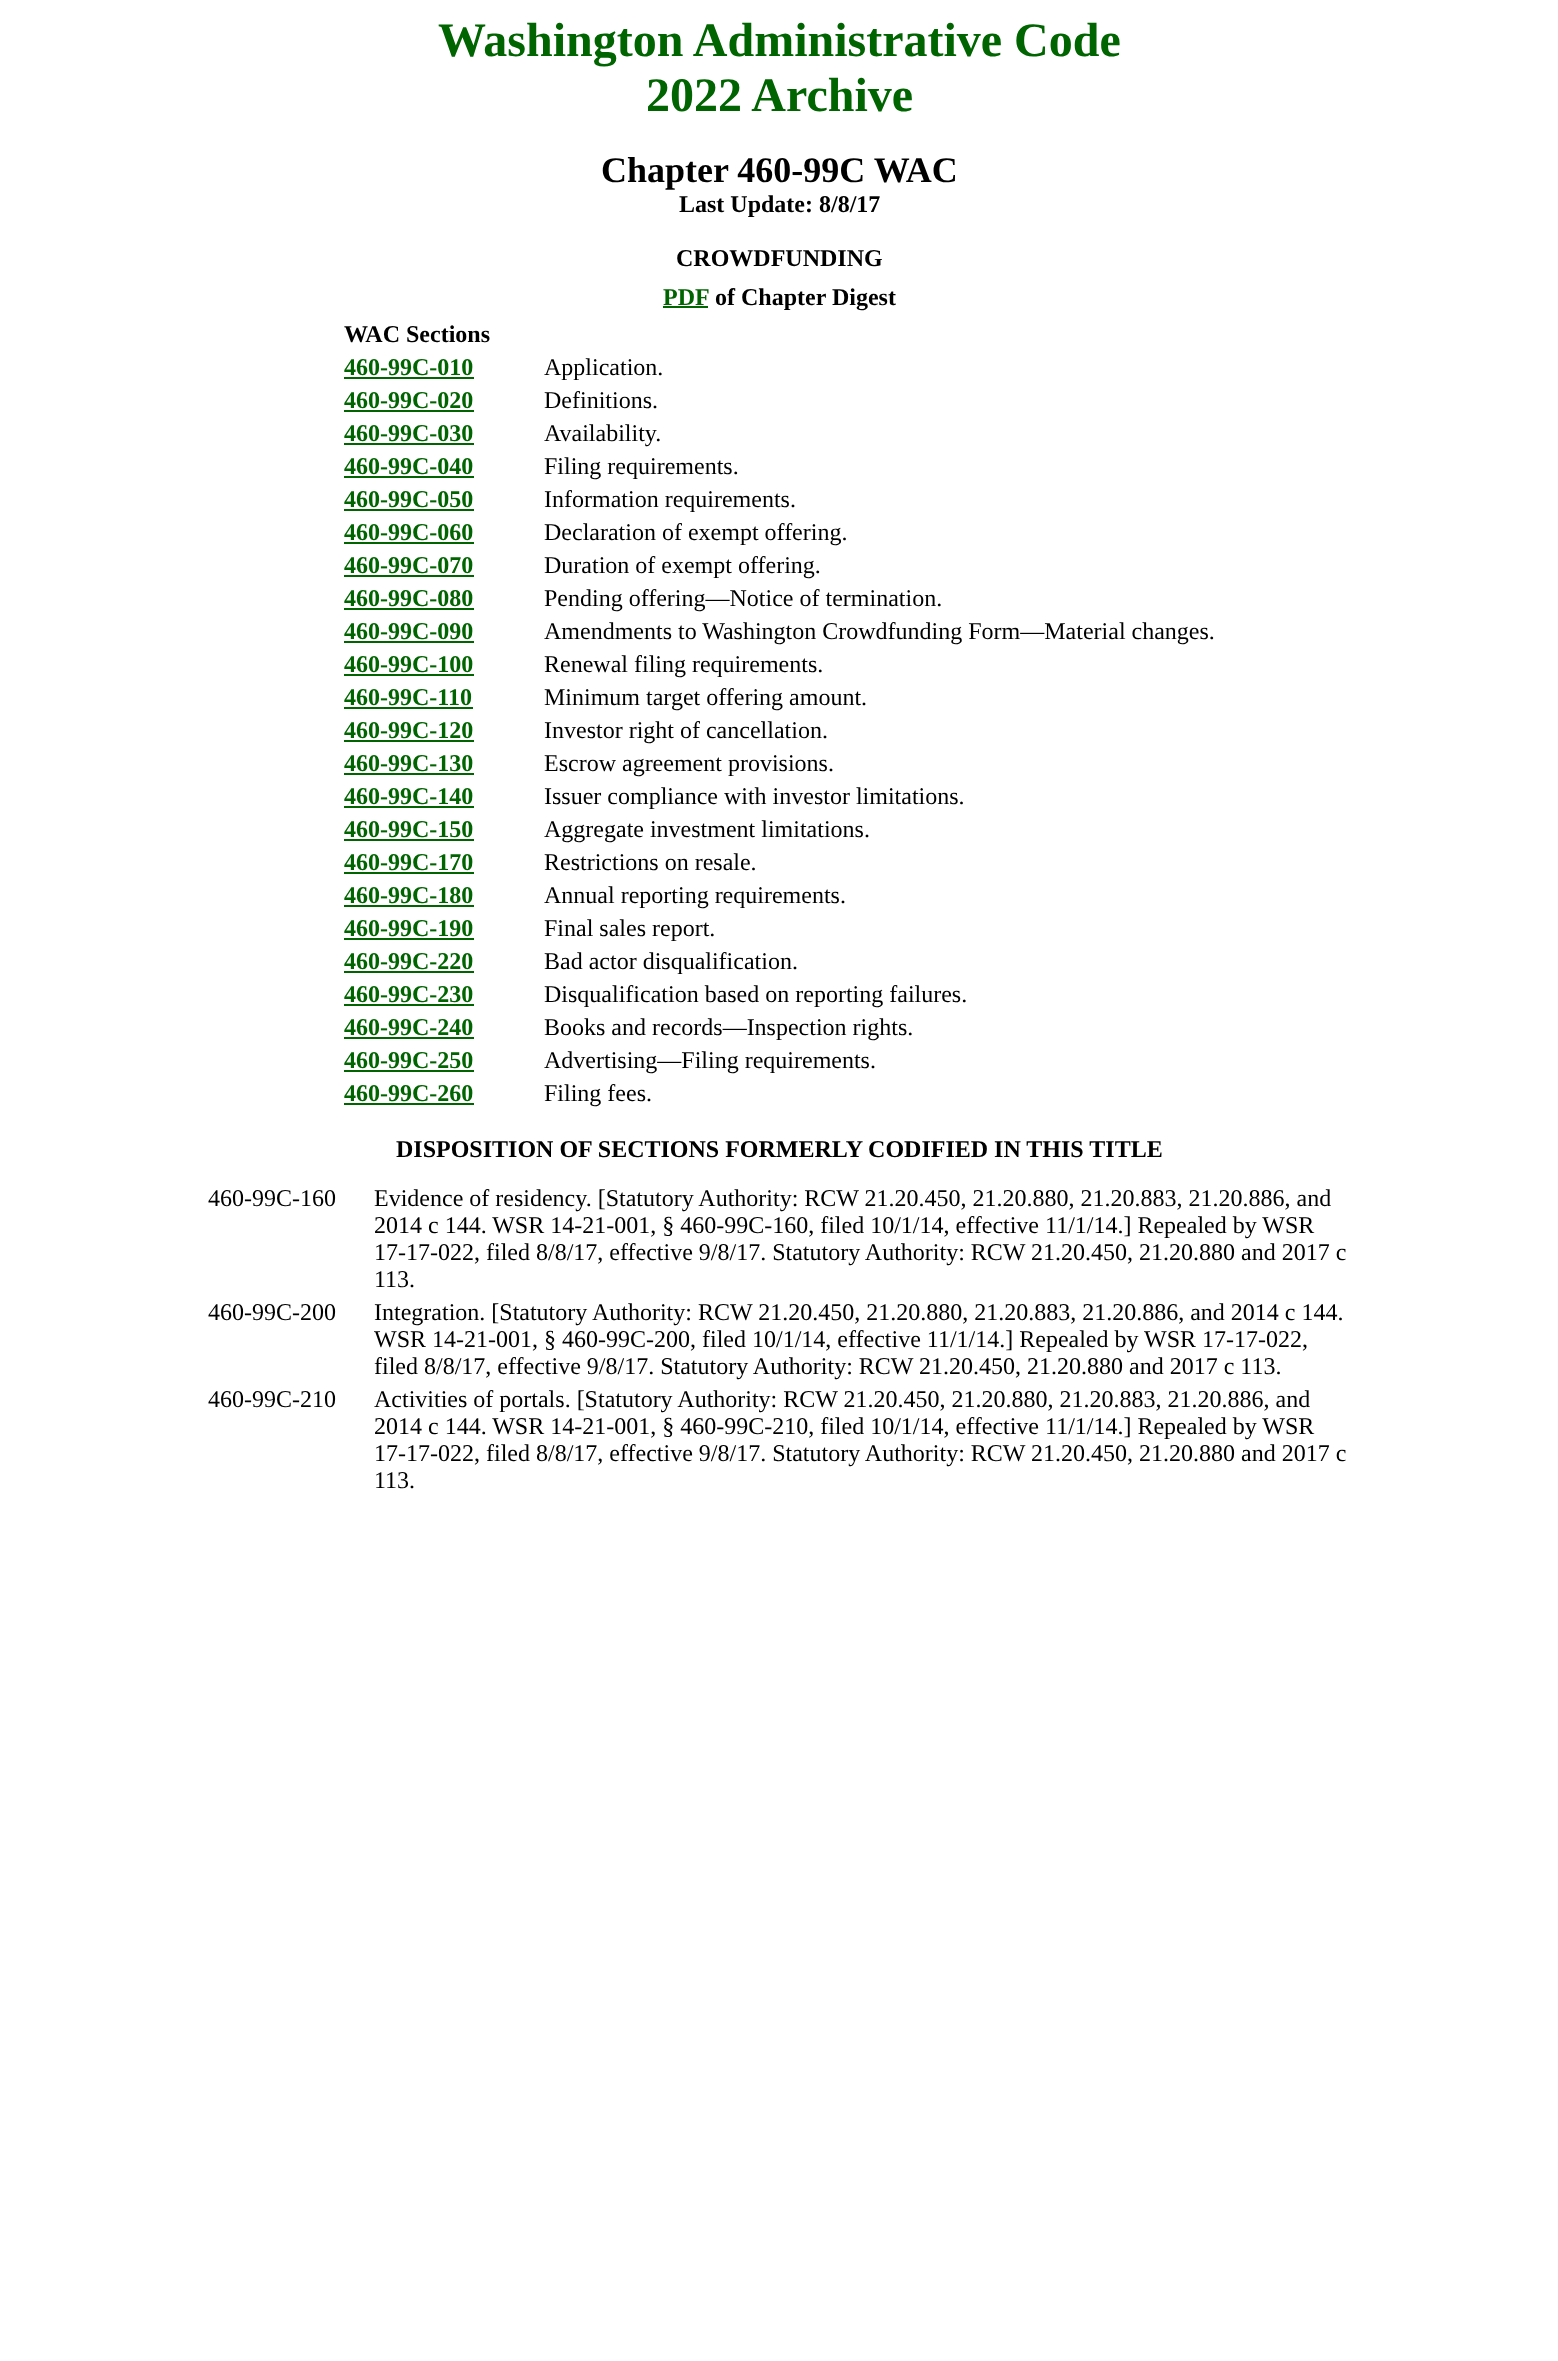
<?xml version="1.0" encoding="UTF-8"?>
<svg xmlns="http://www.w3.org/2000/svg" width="1558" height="2361">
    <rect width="100%" height="100%" fill="#FFFFFF"/>
    <text x="438" y="56" font-family="Liberation Serif" font-size="48" font-weight="700" fill="#006400">Washington Administrative Code</text>
    <text x="646" y="111" font-family="Liberation Serif" font-size="48" font-weight="700" fill="#006400">2022 Archive</text>
    <text x="601" y="182" font-family="Liberation Serif" font-size="36" font-weight="700" fill="#000000">Chapter 460-99C WAC</text>
    <text x="679" y="212" font-family="Liberation Serif" font-size="24" font-weight="700" fill="#000000">Last Update: 8/8/17</text>
    <text x="676" y="266" font-family="Liberation Serif" font-size="24" font-weight="700" fill="#000000">CROWDFUNDING</text>
    <text x="663" y="305" font-family="Liberation Serif" font-size="24" font-weight="700" fill="#006400">PDF</text>
    <rect x="663" y="306" width="45" height="2" fill="#006400"/>
    <text x="715" y="305" font-family="Liberation Serif" font-size="24" font-weight="700" fill="#000000">of Chapter Digest</text>
    <text x="344" y="342" font-family="Liberation Serif" font-size="24" font-weight="700" fill="#000000">WAC Sections</text>
    <text x="344" y="375" font-family="Liberation Serif" font-size="24" font-weight="700" fill="#006400">460-99C-010</text>
    <rect x="344" y="377" width="130" height="2" fill="#006400"/>
    <text x="544" y="375" font-family="Liberation Serif" font-size="24" fill="#000000">Application.</text>
    <text x="344" y="408" font-family="Liberation Serif" font-size="24" font-weight="700" fill="#006400">460-99C-020</text>
    <rect x="344" y="410" width="130" height="2" fill="#006400"/>
    <text x="544" y="408" font-family="Liberation Serif" font-size="24" fill="#000000">Definitions.</text>
    <text x="344" y="441" font-family="Liberation Serif" font-size="24" font-weight="700" fill="#006400">460-99C-030</text>
    <rect x="344" y="443" width="130" height="2" fill="#006400"/>
    <text x="544" y="441" font-family="Liberation Serif" font-size="24" fill="#000000">Availability.</text>
    <text x="344" y="474" font-family="Liberation Serif" font-size="24" font-weight="700" fill="#006400">460-99C-040</text>
    <rect x="344" y="476" width="130" height="2" fill="#006400"/>
    <text x="544" y="474" font-family="Liberation Serif" font-size="24" fill="#000000">Filing requirements.</text>
    <text x="344" y="507" font-family="Liberation Serif" font-size="24" font-weight="700" fill="#006400">460-99C-050</text>
    <rect x="344" y="509" width="130" height="2" fill="#006400"/>
    <text x="544" y="507" font-family="Liberation Serif" font-size="24" fill="#000000">Information requirements.</text>
    <text x="344" y="540" font-family="Liberation Serif" font-size="24" font-weight="700" fill="#006400">460-99C-060</text>
    <rect x="344" y="542" width="130" height="2" fill="#006400"/>
    <text x="544" y="540" font-family="Liberation Serif" font-size="24" fill="#000000">Declaration of exempt offering.</text>
    <text x="344" y="573" font-family="Liberation Serif" font-size="24" font-weight="700" fill="#006400">460-99C-070</text>
    <rect x="344" y="575" width="130" height="2" fill="#006400"/>
    <text x="544" y="573" font-family="Liberation Serif" font-size="24" fill="#000000">Duration of exempt offering.</text>
    <text x="344" y="606" font-family="Liberation Serif" font-size="24" font-weight="700" fill="#006400">460-99C-080</text>
    <rect x="344" y="608" width="130" height="2" fill="#006400"/>
    <text x="544" y="606" font-family="Liberation Serif" font-size="24" fill="#000000">Pending offering—Notice of termination.</text>
    <text x="344" y="639" font-family="Liberation Serif" font-size="24" font-weight="700" fill="#006400">460-99C-090</text>
    <rect x="344" y="641" width="130" height="2" fill="#006400"/>
    <text x="544" y="639" font-family="Liberation Serif" font-size="24" fill="#000000">Amendments to Washington Crowdfunding Form—Material changes.</text>
    <text x="344" y="672" font-family="Liberation Serif" font-size="24" font-weight="700" fill="#006400">460-99C-100</text>
    <rect x="344" y="674" width="130" height="2" fill="#006400"/>
    <text x="544" y="672" font-family="Liberation Serif" font-size="24" fill="#000000">Renewal filing requirements.</text>
    <text x="344" y="705" font-family="Liberation Serif" font-size="24" font-weight="700" fill="#006400">460-99C-110</text>
    <rect x="344" y="707" width="129" height="2" fill="#006400"/>
    <text x="544" y="705" font-family="Liberation Serif" font-size="24" fill="#000000">Minimum target offering amount.</text>
    <text x="344" y="738" font-family="Liberation Serif" font-size="24" font-weight="700" fill="#006400">460-99C-120</text>
    <rect x="344" y="740" width="130" height="2" fill="#006400"/>
    <text x="544" y="738" font-family="Liberation Serif" font-size="24" fill="#000000">Investor right of cancellation.</text>
    <text x="344" y="771" font-family="Liberation Serif" font-size="24" font-weight="700" fill="#006400">460-99C-130</text>
    <rect x="344" y="773" width="130" height="2" fill="#006400"/>
    <text x="544" y="771" font-family="Liberation Serif" font-size="24" fill="#000000">Escrow agreement provisions.</text>
    <text x="344" y="804" font-family="Liberation Serif" font-size="24" font-weight="700" fill="#006400">460-99C-140</text>
    <rect x="344" y="806" width="130" height="2" fill="#006400"/>
    <text x="544" y="804" font-family="Liberation Serif" font-size="24" fill="#000000">Issuer compliance with investor limitations.</text>
    <text x="344" y="837" font-family="Liberation Serif" font-size="24" font-weight="700" fill="#006400">460-99C-150</text>
    <rect x="344" y="839" width="130" height="2" fill="#006400"/>
    <text x="544" y="837" font-family="Liberation Serif" font-size="24" fill="#000000">Aggregate investment limitations.</text>
    <text x="344" y="870" font-family="Liberation Serif" font-size="24" font-weight="700" fill="#006400">460-99C-170</text>
    <rect x="344" y="872" width="130" height="2" fill="#006400"/>
    <text x="544" y="870" font-family="Liberation Serif" font-size="24" fill="#000000">Restrictions on resale.</text>
    <text x="344" y="903" font-family="Liberation Serif" font-size="24" font-weight="700" fill="#006400">460-99C-180</text>
    <rect x="344" y="905" width="130" height="2" fill="#006400"/>
    <text x="544" y="903" font-family="Liberation Serif" font-size="24" fill="#000000">Annual reporting requirements.</text>
    <text x="344" y="936" font-family="Liberation Serif" font-size="24" font-weight="700" fill="#006400">460-99C-190</text>
    <rect x="344" y="938" width="130" height="2" fill="#006400"/>
    <text x="544" y="936" font-family="Liberation Serif" font-size="24" fill="#000000">Final sales report.</text>
    <text x="344" y="969" font-family="Liberation Serif" font-size="24" font-weight="700" fill="#006400">460-99C-220</text>
    <rect x="344" y="971" width="130" height="2" fill="#006400"/>
    <text x="544" y="969" font-family="Liberation Serif" font-size="24" fill="#000000">Bad actor disqualification.</text>
    <text x="344" y="1002" font-family="Liberation Serif" font-size="24" font-weight="700" fill="#006400">460-99C-230</text>
    <rect x="344" y="1004" width="130" height="2" fill="#006400"/>
    <text x="544" y="1002" font-family="Liberation Serif" font-size="24" fill="#000000">Disqualification based on reporting failures.</text>
    <text x="344" y="1035" font-family="Liberation Serif" font-size="24" font-weight="700" fill="#006400">460-99C-240</text>
    <rect x="344" y="1037" width="130" height="2" fill="#006400"/>
    <text x="544" y="1035" font-family="Liberation Serif" font-size="24" fill="#000000">Books and records—Inspection rights.</text>
    <text x="344" y="1068" font-family="Liberation Serif" font-size="24" font-weight="700" fill="#006400">460-99C-250</text>
    <rect x="344" y="1070" width="130" height="2" fill="#006400"/>
    <text x="544" y="1068" font-family="Liberation Serif" font-size="24" fill="#000000">Advertising—Filing requirements.</text>
    <text x="344" y="1101" font-family="Liberation Serif" font-size="24" font-weight="700" fill="#006400">460-99C-260</text>
    <rect x="344" y="1103" width="130" height="2" fill="#006400"/>
    <text x="544" y="1101" font-family="Liberation Serif" font-size="24" fill="#000000">Filing fees.</text>
    <text x="396" y="1157" font-family="Liberation Serif" font-size="24" font-weight="700" fill="#000000">DISPOSITION OF SECTIONS FORMERLY CODIFIED IN THIS TITLE</text>
    <text x="208" y="1206" font-family="Liberation Serif" font-size="24" fill="#000000">460-99C-160</text>
    <text font-family="Liberation Serif" font-size="24" fill="#000000">
        <tspan x="374" y="1206">Evidence of residency. [Statutory Authority: RCW 21.20.450, 21.20.880, 21.20.883, 21.20.886, and</tspan>
        <tspan x="374" y="1233">2014 c 144. WSR 14-21-001, § 460-99C-160, filed 10/1/14, effective 11/1/14.] Repealed by WSR</tspan>
        <tspan x="374" y="1260">17-17-022, filed 8/8/17, effective 9/8/17. Statutory Authority: RCW 21.20.450, 21.20.880 and 2017 c</tspan>
        <tspan x="374" y="1287">113.</tspan>
    </text>
    <text x="208" y="1320" font-family="Liberation Serif" font-size="24" fill="#000000">460-99C-200</text>
    <text font-family="Liberation Serif" font-size="24" fill="#000000">
        <tspan x="374" y="1320">Integration. [Statutory Authority: RCW 21.20.450, 21.20.880, 21.20.883, 21.20.886, and 2014 c 144.</tspan>
        <tspan x="374" y="1347">WSR 14-21-001, § 460-99C-200, filed 10/1/14, effective 11/1/14.] Repealed by WSR 17-17-022,</tspan>
        <tspan x="374" y="1374">filed 8/8/17, effective 9/8/17. Statutory Authority: RCW 21.20.450, 21.20.880 and 2017 c 113.</tspan>
    </text>
    <text x="208" y="1407" font-family="Liberation Serif" font-size="24" fill="#000000">460-99C-210</text>
    <text font-family="Liberation Serif" font-size="24" fill="#000000">
        <tspan x="374" y="1407">Activities of portals. [Statutory Authority: RCW 21.20.450, 21.20.880, 21.20.883, 21.20.886, and</tspan>
        <tspan x="374" y="1434">2014 c 144. WSR 14-21-001, § 460-99C-210, filed 10/1/14, effective 11/1/14.] Repealed by WSR</tspan>
        <tspan x="374" y="1461">17-17-022, filed 8/8/17, effective 9/8/17. Statutory Authority: RCW 21.20.450, 21.20.880 and 2017 c</tspan>
        <tspan x="374" y="1488">113.</tspan>
    </text>
</svg>
